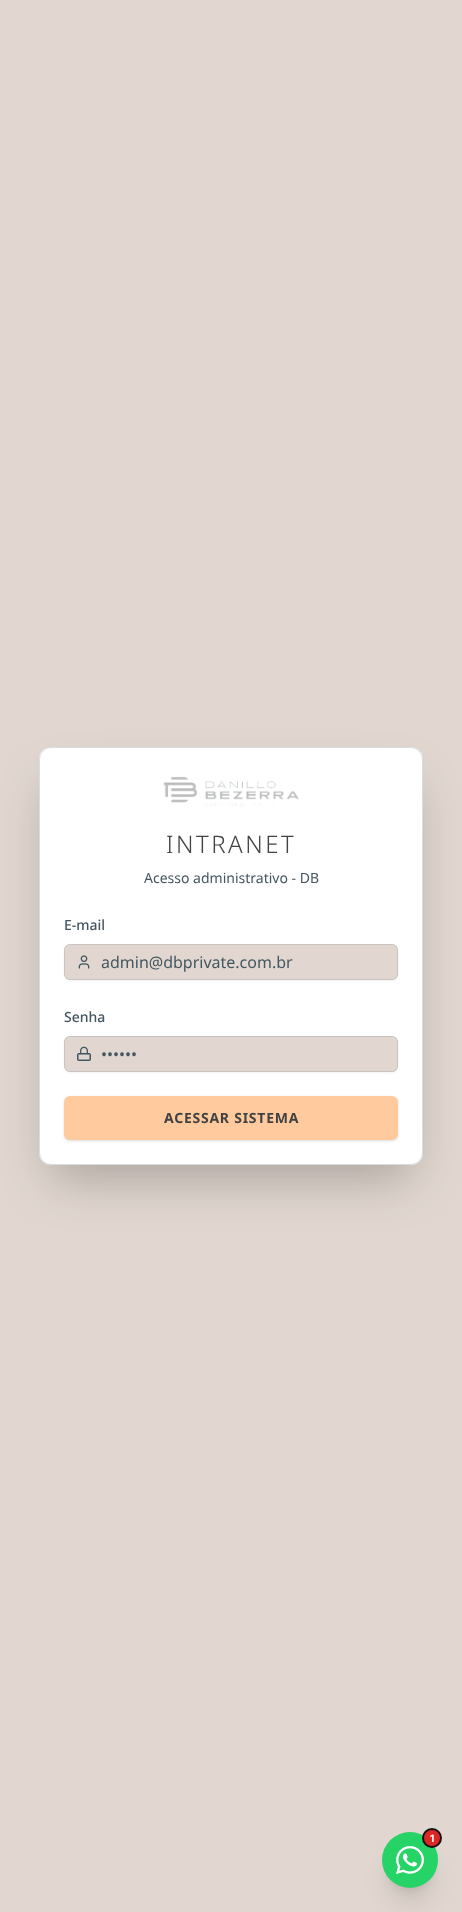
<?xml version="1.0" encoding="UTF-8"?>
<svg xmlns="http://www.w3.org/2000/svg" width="462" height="1912">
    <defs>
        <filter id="blur1" x="-50%" y="-200%" width="200%" height="500%"><feGaussianBlur stdDeviation="25"/></filter>
        <filter id="blur2" x="-50%" y="-200%" width="200%" height="500%"><feGaussianBlur stdDeviation="1"/></filter>
        <filter id="blur3" x="-50%" y="-200%" width="200%" height="500%"><feGaussianBlur stdDeviation="1.5"/></filter>
        <filter id="blur4" x="-50%" y="-200%" width="200%" height="500%"><feGaussianBlur stdDeviation="5"/></filter>
        <filter id="blur5" x="-50%" y="-200%" width="200%" height="500%"><feGaussianBlur stdDeviation="12.5"/></filter>
    </defs>
    <rect width="100%" height="100%" fill="#E1D7D0"/>
    <rect x="51" y="784" width="360" height="394" fill="#000000" fill-opacity="0.25" filter="url(#blur1)"/>
    <rect x="39" y="747" width="384" height="418" rx="12" fill="#FFFFFF"/>
    <rect x="39.5" y="747.5" width="383" height="417" rx="11.5" fill="none" stroke="#435660" stroke-opacity="0.2"/>
    <image x="163" y="776" width="136" height="31" href="img_01.png"/>
    <text x="166" y="853" font-family="Noto Sans" font-size="24" font-weight="300" letter-spacing="2.5" fill="#424242">INTRANET</text>
    <text x="144" y="883" font-family="Noto Sans" font-size="14" fill="#435660">Acesso administrativo - DB</text>
    <text x="64" y="930" font-family="Noto Sans" font-size="14" font-weight="500" fill="#435660">E-mail</text>
    <rect x="64" y="945" width="334" height="36" rx="6" fill="#000000" fill-opacity="0.05" filter="url(#blur2)"/>
    <rect x="64" y="944" width="334" height="36" rx="6" fill="#E1D7D0"/>
    <rect x="64.5" y="944.5" width="333" height="35" rx="5.5" fill="none" stroke="#435660" stroke-opacity="0.15"/>
    <image x="78" y="955" width="12" height="14" href="img_02.png"/>
    <text x="101" y="968" font-family="Noto Sans" font-size="16" fill="#435660">admin@dbprivate.com.br</text>
    <text x="64" y="1022" font-family="Noto Sans" font-size="14" font-weight="500" fill="#435660">Senha</text>
    <rect x="64" y="1037" width="334" height="36" rx="6" fill="#000000" fill-opacity="0.05" filter="url(#blur2)"/>
    <rect x="64" y="1036" width="334" height="36" rx="6" fill="#E1D7D0"/>
    <rect x="64.5" y="1036.5" width="333" height="35" rx="5.5" fill="none" stroke="#435660" stroke-opacity="0.15"/>
    <image x="77" y="1046" width="14" height="15" href="img_03.png"/>
    <text x="101" y="1060" font-family="Noto Sans" font-size="16" fill="#435660">••••••</text>
    <rect x="65" y="1098" width="332" height="42" rx="5" fill="#000000" fill-opacity="0.1" filter="url(#blur2)"/>
    <rect x="64" y="1097" width="334" height="44" rx="6" fill="#000000" fill-opacity="0.1" filter="url(#blur3)"/>
    <rect x="64" y="1096" width="334" height="44" rx="6" fill="#FFCB9E"/>
    <text x="164" y="1123" font-family="Noto Sans" font-size="14" font-weight="700" letter-spacing="0.75" fill="#424242">ACESSAR SISTEMA</text>
    <rect x="388" y="1846" width="44" height="44" rx="22" fill="#000000" fill-opacity="0.1" filter="url(#blur4)"/>
    <rect x="387" y="1857" width="46" height="46" rx="23" fill="#000000" fill-opacity="0.1" filter="url(#blur5)"/>
    <circle cx="410" cy="1860" r="28" fill="#25D366"/>
    <image x="396" y="1846" width="28" height="28" href="img_04.png"/>
    <circle cx="432" cy="1838" r="9" fill="#DC2626" stroke="#121212" stroke-width="2"/>
    <text x="430" y="1842" font-family="Inter" font-size="10" font-weight="700" fill="#FFFFFF">1</text>
</svg>
